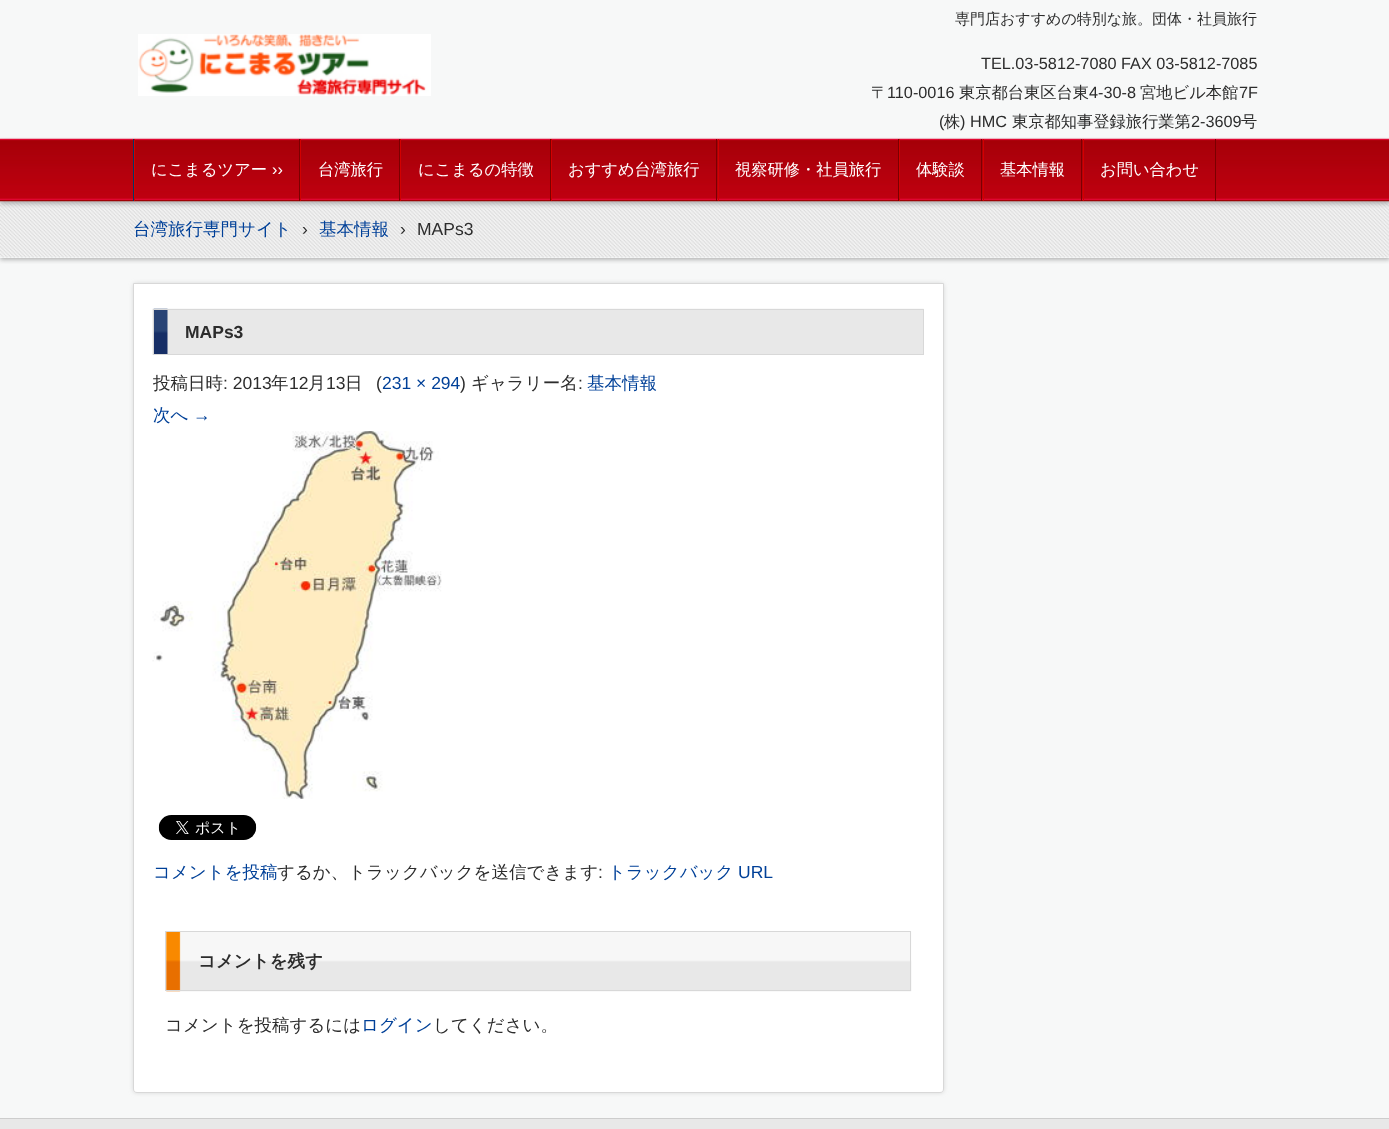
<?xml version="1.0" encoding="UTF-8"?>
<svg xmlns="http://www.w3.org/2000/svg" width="1389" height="1129">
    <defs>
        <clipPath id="clip1"><path d="M 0 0 H 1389 V 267 H 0 Z M 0 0 H 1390 V 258 H 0 Z" clip-rule="evenodd"/></clipPath>
        <filter id="blur1" x="-50%" y="-200%" width="200%" height="500%"><feGaussianBlur stdDeviation="2"/></filter>
    </defs>
    <rect width="100%" height="100%" fill="#F7F8F8"/>
    <g clip-path="url(#clip1)">
        <rect x="0" y="3" width="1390" height="257" fill="#A0A0A0" fill-opacity="0.75" filter="url(#blur1)"/>
    </g>
    <image x="0" y="201" width="1389" height="57" href="img_01.png"/>
    <text x="955" y="24" font-family="WenQuanYi Zen Hei" font-size="15" font-weight="500" fill="#2C2C2C">専門店おすすめの特別な旅。団体・社員旅行</text>
    <image x="138" y="34" width="293" height="62" href="img_02.png"/>
    <text x="981" y="69" font-family="Liberation Sans" font-size="16.25" fill="#2C2C2C">TEL.03-5812-7080 FAX 03-5812-7085</text>
    <text x="871" y="98" font-family="WenQuanYi Zen Hei" font-size="16.25" font-weight="500" fill="#2C2C2C">〒</text>
    <text x="887" y="98" font-family="Liberation Sans" font-size="16.25" fill="#2C2C2C">110-0016</text>
    <text x="959" y="98" font-family="WenQuanYi Zen Hei" font-size="16.25" font-weight="500" fill="#2C2C2C">東京都台東区台東</text>
    <text x="1089" y="98" font-family="Liberation Sans" font-size="16.25" fill="#2C2C2C">4-30-8</text>
    <text x="1140" y="98" font-family="WenQuanYi Zen Hei" font-size="16.25" font-weight="500" fill="#2C2C2C">宮地ビル本館</text>
    <text x="1239" y="98" font-family="Liberation Sans" font-size="16.25" fill="#2C2C2C">7F</text>
    <text x="939" y="127" font-family="Liberation Sans" font-size="16.25" fill="#2C2C2C">(</text>
    <text x="944" y="127" font-family="WenQuanYi Zen Hei" font-size="16.25" font-weight="500" fill="#2C2C2C">株</text>
    <text x="960" y="127" font-family="Liberation Sans" font-size="16.25" fill="#2C2C2C">) HMC</text>
    <text x="1012" y="127" font-family="WenQuanYi Zen Hei" font-size="16.25" font-weight="500" fill="#2C2C2C">東京都知事登録旅行業第</text>
    <text x="1191" y="127" font-family="Liberation Sans" font-size="16.25" fill="#2C2C2C">2-3609</text>
    <text x="1241" y="127" font-family="WenQuanYi Zen Hei" font-size="16.25" font-weight="500" fill="#2C2C2C">号</text>
    <rect x="0" y="141" width="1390" height="63" fill="#A0A0A0" fill-opacity="0.75" filter="url(#blur1)"/>
    <image x="0" y="138" width="1389" height="64" href="img_03.png"/>
    <rect x="133" y="139" width="1" height="62" fill="#003A69"/>
    <rect x="299" y="139" width="1" height="62" fill="#7B0000"/>
    <rect x="134" y="139" width="1" height="62" fill="#D20000"/>
    <text x="151" y="175" font-family="WenQuanYi Zen Hei" font-size="16.25" font-weight="500" fill="#FFFFFF">にこまるツアー</text>
    <text x="272" y="175" font-family="Liberation Sans" font-size="16.25" fill="#FFFFFF">››</text>
    <rect x="399" y="139" width="1" height="62" fill="#7B0000"/>
    <rect x="300" y="139" width="1" height="62" fill="#D20000"/>
    <text x="318" y="175" font-family="WenQuanYi Zen Hei" font-size="16.25" font-weight="500" fill="#FFFFFF">台湾旅行</text>
    <rect x="550" y="139" width="1" height="62" fill="#7B0000"/>
    <rect x="400" y="139" width="1" height="62" fill="#D20000"/>
    <text x="418" y="175" font-family="WenQuanYi Zen Hei" font-size="16.25" font-weight="500" fill="#FFFFFF">にこまるの特徴</text>
    <rect x="716" y="139" width="1" height="62" fill="#7B0000"/>
    <rect x="551" y="139" width="1" height="62" fill="#D20000"/>
    <text x="568" y="175" font-family="WenQuanYi Zen Hei" font-size="16.25" font-weight="500" fill="#FFFFFF">おすすめ台湾旅行</text>
    <rect x="898" y="139" width="1" height="62" fill="#7B0000"/>
    <rect x="718" y="139" width="1" height="62" fill="#D20000"/>
    <text x="735" y="175" font-family="WenQuanYi Zen Hei" font-size="16.25" font-weight="500" fill="#FFFFFF">視察研修・社員旅行</text>
    <rect x="981" y="139" width="1" height="62" fill="#7B0000"/>
    <rect x="899" y="139" width="1" height="62" fill="#D20000"/>
    <text x="916" y="175" font-family="WenQuanYi Zen Hei" font-size="16.25" font-weight="500" fill="#FFFFFF">体験談</text>
    <rect x="1081" y="139" width="1" height="62" fill="#7B0000"/>
    <rect x="983" y="139" width="1" height="62" fill="#D20000"/>
    <text x="1000" y="175" font-family="WenQuanYi Zen Hei" font-size="16.25" font-weight="500" fill="#FFFFFF">基本情報</text>
    <rect x="1215" y="139" width="1" height="62" fill="#7B0000"/>
    <rect x="1083" y="139" width="1" height="62" fill="#D20000"/>
    <text x="1100" y="175" font-family="WenQuanYi Zen Hei" font-size="16.25" font-weight="500" fill="#FFFFFF">お問い合わせ</text>
    <text x="133" y="235" font-family="WenQuanYi Zen Hei" font-size="17.5" font-weight="500" fill="#004098">台湾旅行専門サイト</text>
    <text x="302" y="235" font-family="Liberation Sans" font-size="17.5" fill="#2C2C2C">›</text>
    <text x="319" y="235" font-family="WenQuanYi Zen Hei" font-size="17.5" font-weight="500" fill="#004098">基本情報</text>
    <text x="400" y="235" font-family="Liberation Sans" font-size="17.5" fill="#2C2C2C">›</text>
    <text x="417" y="235" font-family="Liberation Sans" font-size="17.5" fill="#2C2C2C">MAPs3</text>
    <rect x="133" y="283" width="811" height="810" rx="4" fill="#CDCDCD" fill-opacity="0.75" filter="url(#blur1)"/>
    <path d="M 133.5 283.5 H 943.5 V 1089 C 943.5 1091 942 1092.5 940 1092.5 H 137 C 135 1092.5 133.5 1091 133.5 1089 Z" fill="#FFFFFF" stroke="#D8D8D8"/>
    <image x="152" y="308" width="772" height="47" href="img_04.png"/>
    <rect x="153.5" y="309.5" width="770" height="45" fill="none" stroke="#D8D8D8"/>
    <text x="185" y="338" font-family="Liberation Sans" font-size="17.5" font-weight="700" fill="#2C2C2C">MAPs3</text>
    <text x="153" y="389" font-family="WenQuanYi Zen Hei" font-size="17.5" font-weight="500" fill="#2C2C2C">投稿日時</text>
    <text x="223" y="389" font-family="Liberation Sans" font-size="17.5" fill="#2C2C2C">: 2013</text>
    <text x="271" y="389" font-family="WenQuanYi Zen Hei" font-size="17.5" font-weight="500" fill="#2C2C2C">年</text>
    <text x="289" y="389" font-family="Liberation Sans" font-size="17.5" fill="#2C2C2C">12</text>
    <text x="308" y="389" font-family="WenQuanYi Zen Hei" font-size="17.5" font-weight="500" fill="#2C2C2C">月</text>
    <text x="326" y="389" font-family="Liberation Sans" font-size="17.5" fill="#2C2C2C">13</text>
    <text x="345" y="389" font-family="WenQuanYi Zen Hei" font-size="17.5" font-weight="500" fill="#2C2C2C">日</text>
    <text x="376" y="389" font-family="Liberation Sans" font-size="17.5" fill="#2C2C2C">(</text>
    <text x="382" y="389" font-family="Liberation Sans" font-size="17.5" fill="#004098">231 × 294</text>
    <text x="460" y="389" font-family="Liberation Sans" font-size="17.5" fill="#2C2C2C">)</text>
    <text x="471" y="389" font-family="WenQuanYi Zen Hei" font-size="17.5" font-weight="500" fill="#2C2C2C">ギャラリー名</text>
    <text x="578" y="389" font-family="Liberation Sans" font-size="17.5" fill="#2C2C2C">:</text>
    <text x="587" y="389" font-family="WenQuanYi Zen Hei" font-size="17.5" font-weight="500" fill="#004098">基本情報</text>
    <text x="153" y="421" font-family="WenQuanYi Zen Hei" font-size="17.5" font-weight="500" fill="#004098">次へ</text>
    <text x="193" y="421" font-family="Liberation Sans" font-size="17.5" fill="#004098">→</text>
    <image x="152" y="431" width="290" height="368" href="img_05.png"/>
    <image x="158" y="815" width="99" height="25" href="img_06.png"/>
    <text x="153" y="878" font-family="WenQuanYi Zen Hei" font-size="17.5" font-weight="500" fill="#004098">コメントを投稿</text>
    <text x="277" y="878" font-family="WenQuanYi Zen Hei" font-size="17.5" font-weight="500" fill="#2C2C2C">するか、トラックバックを送信できます</text>
    <text x="598" y="878" font-family="Liberation Sans" font-size="17.5" fill="#2C2C2C">:</text>
    <text x="608" y="878" font-family="WenQuanYi Zen Hei" font-size="17.5" font-weight="500" fill="#004098">トラックバック</text>
    <text x="738" y="878" font-family="Liberation Sans" font-size="17.5" fill="#004098">URL</text>
    <image x="165" y="931" width="747" height="61" href="img_07.png"/>
    <rect x="165.5" y="931.5" width="745" height="59" fill="none" stroke="#D8D8D8"/>
    <text x="198" y="967" font-family="WenQuanYi Zen Hei" font-size="17.5" font-weight="700" fill="#2C2C2C">コメントを残す</text>
    <text x="165" y="1031" font-family="WenQuanYi Zen Hei" font-size="17.5" font-weight="500" fill="#2C2C2C">コメントを投稿するには</text>
    <text x="361" y="1031" font-family="WenQuanYi Zen Hei" font-size="17.5" font-weight="500" fill="#004098">ログイン</text>
    <text x="433" y="1031" font-family="WenQuanYi Zen Hei" font-size="17.5" font-weight="500" fill="#2C2C2C">してください。</text>
    <rect x="0" y="1119" width="1389" height="10" fill="#E8E8E8"/>
    <rect x="0" y="1118" width="1389" height="1" fill="#CDCDCD"/>
</svg>
